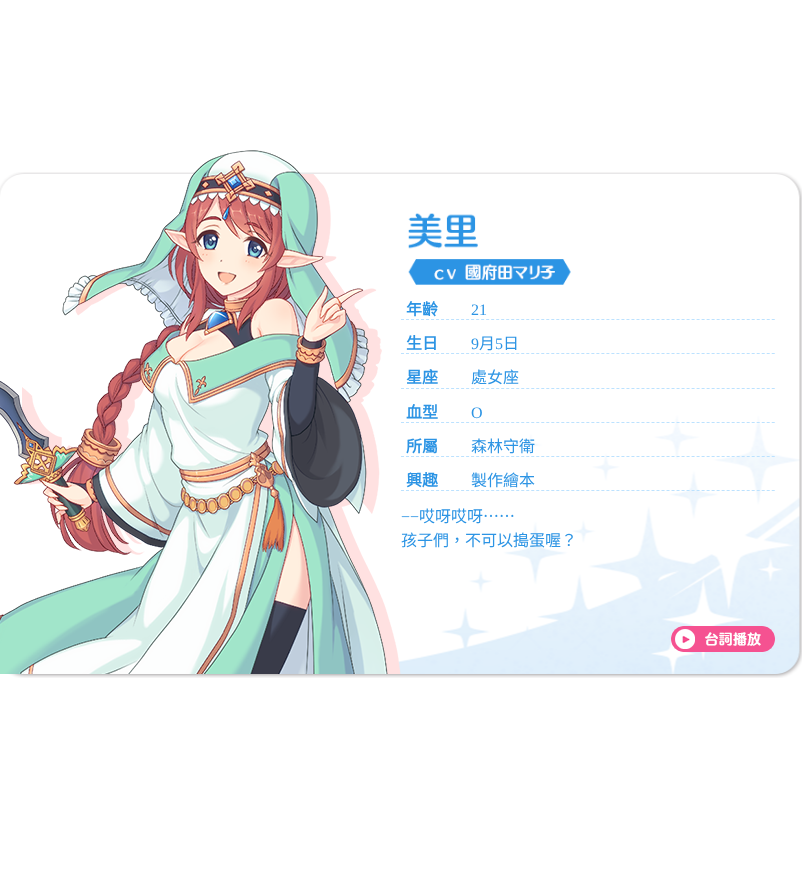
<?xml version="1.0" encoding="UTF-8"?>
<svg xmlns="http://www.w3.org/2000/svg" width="802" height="887">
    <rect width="100%" height="100%" fill="#FFFFFF"/>
    <image x="0" y="172" width="802" height="506" href="img_01.png"/>
    <image x="0" y="150" width="401" height="524" href="img_02.png"/>
    <image x="408" y="213" width="163" height="72" href="img_03.png"/>
    <path d="M 401 319.5 H 775" fill="none" stroke="#BCE2FF" stroke-dasharray="3 2.01"/>
    <text x="406" y="315" font-family="Noto Sans CJK TC" font-size="16" font-weight="700" fill="#2C94E4">年齡</text>
    <text x="471" y="315" font-family="Liberation Serif" font-size="16" fill="#2C94E4">21</text>
    <path d="M 401 353.5 H 775" fill="none" stroke="#BCE2FF" stroke-dasharray="3 2.01"/>
    <text x="406" y="349" font-family="Noto Sans CJK TC" font-size="16" font-weight="700" fill="#2C94E4">生日</text>
    <text x="471" y="349" font-family="Liberation Serif" font-size="16" fill="#2C94E4">9</text>
    <text x="479" y="349" font-family="Noto Sans CJK TC" font-size="16" fill="#2C94E4">月</text>
    <text x="495" y="349" font-family="Liberation Serif" font-size="16" fill="#2C94E4">5</text>
    <text x="503" y="349" font-family="Noto Sans CJK TC" font-size="16" fill="#2C94E4">日</text>
    <path d="M 401 388.5 H 775" fill="none" stroke="#BCE2FF" stroke-dasharray="3 2.01"/>
    <text x="406" y="383" font-family="Noto Sans CJK TC" font-size="16" font-weight="700" fill="#2C94E4">星座</text>
    <text x="471" y="383" font-family="Noto Sans CJK TC" font-size="16" fill="#2C94E4">處女座</text>
    <path d="M 401 422.5 H 775" fill="none" stroke="#BCE2FF" stroke-dasharray="3 2.01"/>
    <text x="406" y="418" font-family="Noto Sans CJK TC" font-size="16" font-weight="700" fill="#2C94E4">血型</text>
    <text x="471" y="418" font-family="Liberation Serif" font-size="16" fill="#2C94E4">O</text>
    <path d="M 401 456.5 H 775" fill="none" stroke="#BCE2FF" stroke-dasharray="3 2.01"/>
    <text x="406" y="452" font-family="Noto Sans CJK TC" font-size="16" font-weight="700" fill="#2C94E4">所屬</text>
    <text x="471" y="452" font-family="Noto Sans CJK TC" font-size="16" fill="#2C94E4">森林守衛</text>
    <path d="M 401 490.5 H 775" fill="none" stroke="#BCE2FF" stroke-dasharray="3 2.01"/>
    <text x="406" y="486" font-family="Noto Sans CJK TC" font-size="16" font-weight="700" fill="#2C94E4">興趣</text>
    <text x="471" y="486" font-family="Noto Sans CJK TC" font-size="16" fill="#2C94E4">製作繪本</text>
    <text x="401" y="522" font-family="Liberation Serif" font-size="16" fill="#2C94E4">−−</text>
    <text x="419" y="522" font-family="Noto Sans CJK TC" font-size="16" fill="#2C94E4">哎呀哎呀⋯⋯</text>
    <text x="401" y="546" font-family="Noto Sans CJK TC" font-size="16" fill="#2C94E4">孩子們，不可以搗蛋喔？</text>
    <image x="671" y="626" width="104" height="26" href="img_04.png"/>
</svg>
